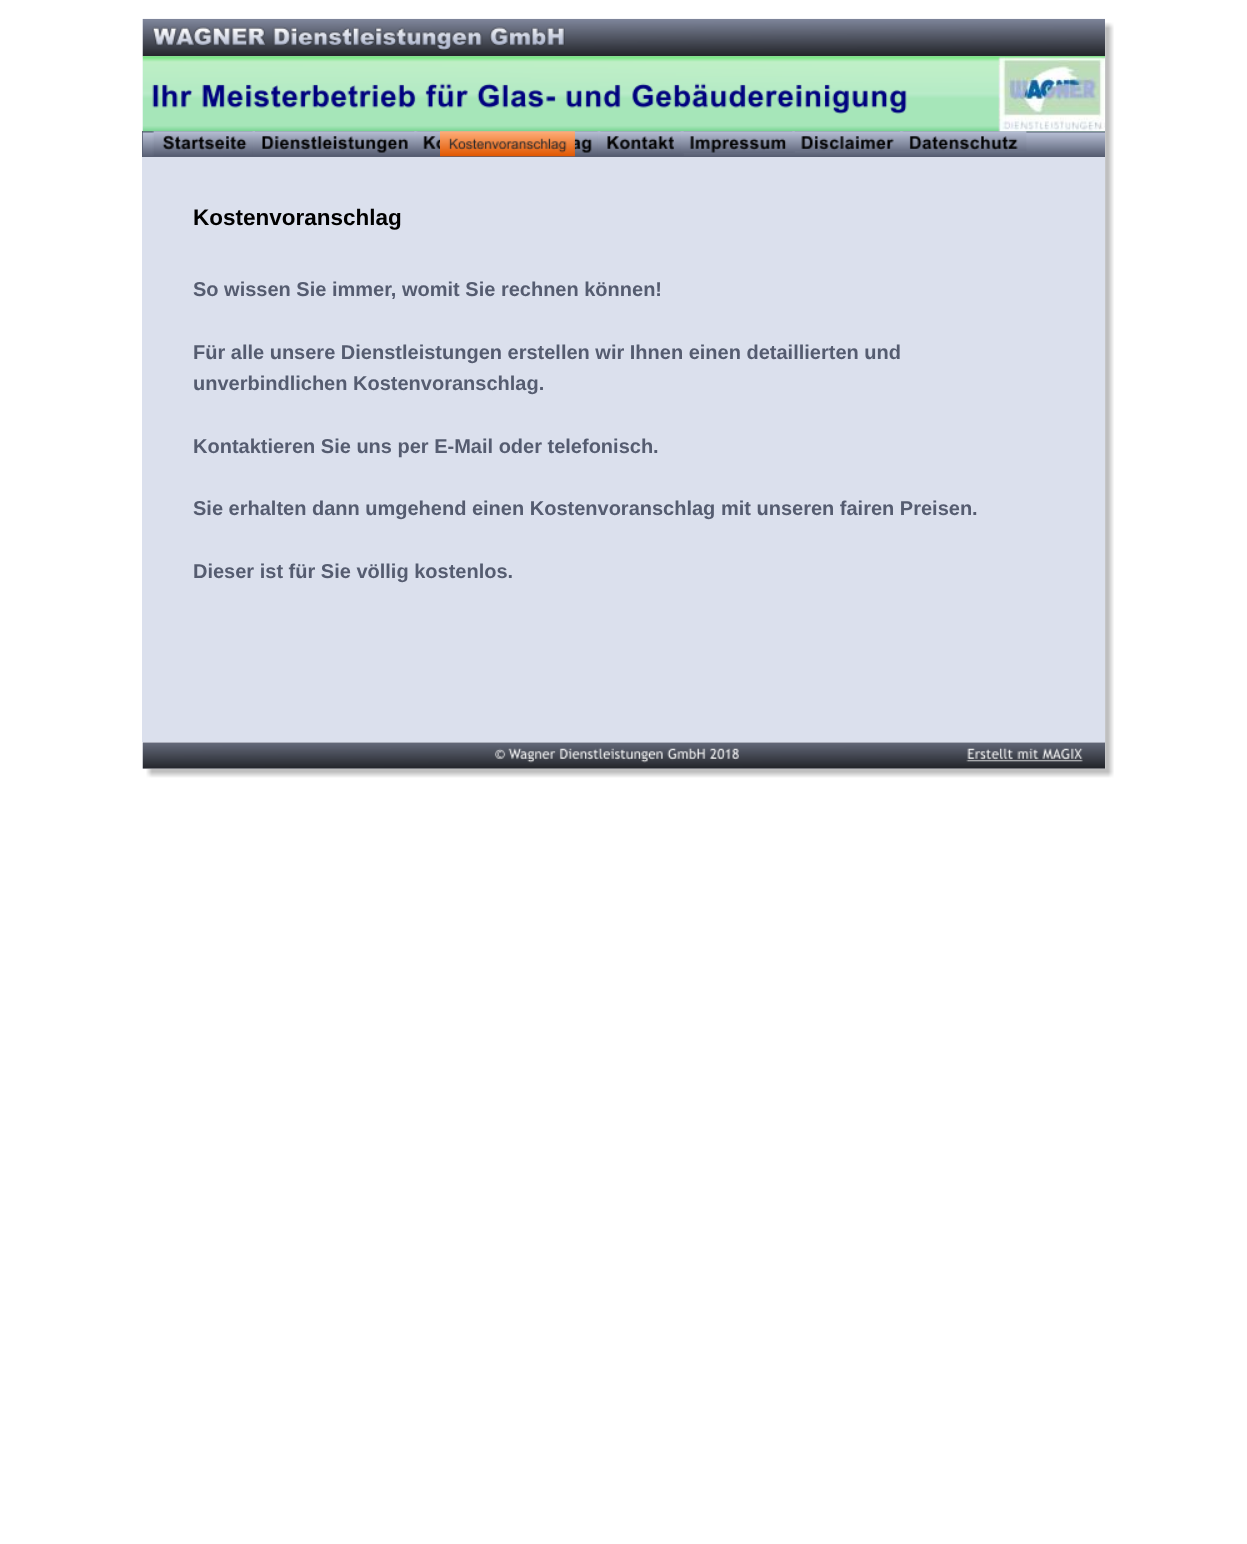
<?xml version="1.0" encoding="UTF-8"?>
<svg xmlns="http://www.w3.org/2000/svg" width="1247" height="1544">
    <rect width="100%" height="100%" fill="#FFFFFF"/>
    <image x="142" y="19" width="972" height="759" href="img_01.png"/>
    <image x="142" y="18" width="963" height="39" href="img_02.png"/>
    <image x="152" y="26" width="413" height="24" href="img_03.png"/>
    <rect x="142" y="131" width="963" height="26" fill="#555C70"/>
    <image x="142" y="56" width="963" height="76" href="img_04.png"/>
    <image x="152" y="83" width="755" height="31" href="img_05.png"/>
    <image x="142" y="132" width="963" height="25" href="img_15.png"/>
    <image x="152" y="131" width="103" height="25" href="img_07.png"/>
    <image x="252" y="131" width="166" height="25" href="img_08.png"/>
    <image x="414" y="131" width="188" height="25" href="img_09.png"/>
    <image x="597" y="131" width="87" height="25" href="img_11.png"/>
    <image x="680" y="131" width="115" height="22" href="img_12.png"/>
    <image x="792" y="131" width="112" height="20" href="img_13.png"/>
    <image x="900" y="131" width="127" height="20" href="img_14.png"/>
    <image x="998" y="57" width="107" height="75" href="img_06.png"/>
    <image x="440" y="131" width="135" height="26" href="img_10.png"/>
    <rect x="142" y="157" width="963" height="585" fill="#DBE0ED"/>
    <text x="193" y="225" font-family="Liberation Sans" font-size="22.5" font-weight="700" fill="#000000">Kostenvoranschlag</text>
    <text x="193" y="296" font-family="Liberation Sans" font-size="20" font-weight="700" fill="#555C70">So wissen Sie immer, womit Sie rechnen können!</text>
    <text font-family="Liberation Sans" font-size="20" font-weight="700" fill="#555C70">
        <tspan x="193" y="359">Für alle unsere Dienstleistungen erstellen wir Ihnen einen detaillierten und</tspan>
        <tspan x="193" y="390">unverbindlichen Kostenvoranschlag.</tspan>
    </text>
    <text x="193" y="453" font-family="Liberation Sans" font-size="20" font-weight="700" fill="#555C70">Kontaktieren Sie uns per E-Mail oder telefonisch.</text>
    <text x="193" y="515" font-family="Liberation Sans" font-size="20" font-weight="700" fill="#555C70">Sie erhalten dann umgehend einen Kostenvoranschlag mit unseren fairen Preisen.</text>
    <text x="193" y="578" font-family="Liberation Sans" font-size="20" font-weight="700" fill="#555C70">Dieser ist für Sie völlig kostenlos.</text>
    <image x="142" y="742" width="963" height="27" href="img_16.png"/>
</svg>
